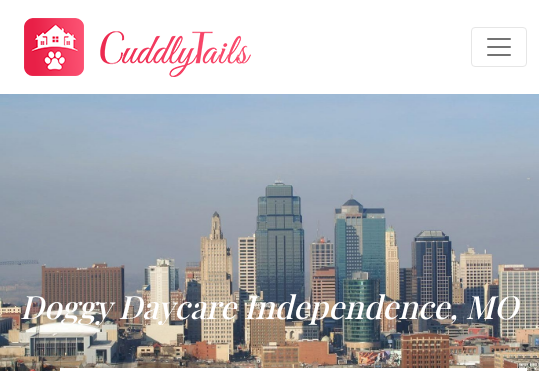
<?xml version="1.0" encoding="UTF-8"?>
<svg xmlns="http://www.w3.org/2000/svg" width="539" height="371">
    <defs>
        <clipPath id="clip1"><path d="M 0 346 H 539 V 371 H 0 Z M 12 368 H 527 V 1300 H 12 Z" clip-rule="evenodd"/></clipPath>
        <filter id="blur1" x="-50%" y="-200%" width="200%" height="500%"><feGaussianBlur stdDeviation="7"/></filter>
    </defs>
    <rect width="100%" height="100%" fill="#FFFFFF"/>
    <image x="24" y="18" width="227" height="59" href="img_01.png"/>
    <rect x="471.5" y="27.5" width="55" height="39" rx="3.5" fill="none" stroke="#E6E6E6"/>
    <image x="487" y="38" width="24" height="18" href="img_02.png"/>
    <image x="0" y="94" width="539" height="277" href="img_03.png"/>
    <text x="20" y="319" font-family="Playfair Display" font-size="32" font-weight="500" font-style="italic" fill="#FFFFFF">Doggy Daycare Independence, MO</text>
    <g clip-path="url(#clip1)">
        <rect x="7" y="368" width="515" height="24" fill="#000000" fill-opacity="0.1" filter="url(#blur1)"/>
    </g>
    <rect x="60" y="368" width="467" height="3" fill="#FFFFFF"/>
</svg>
